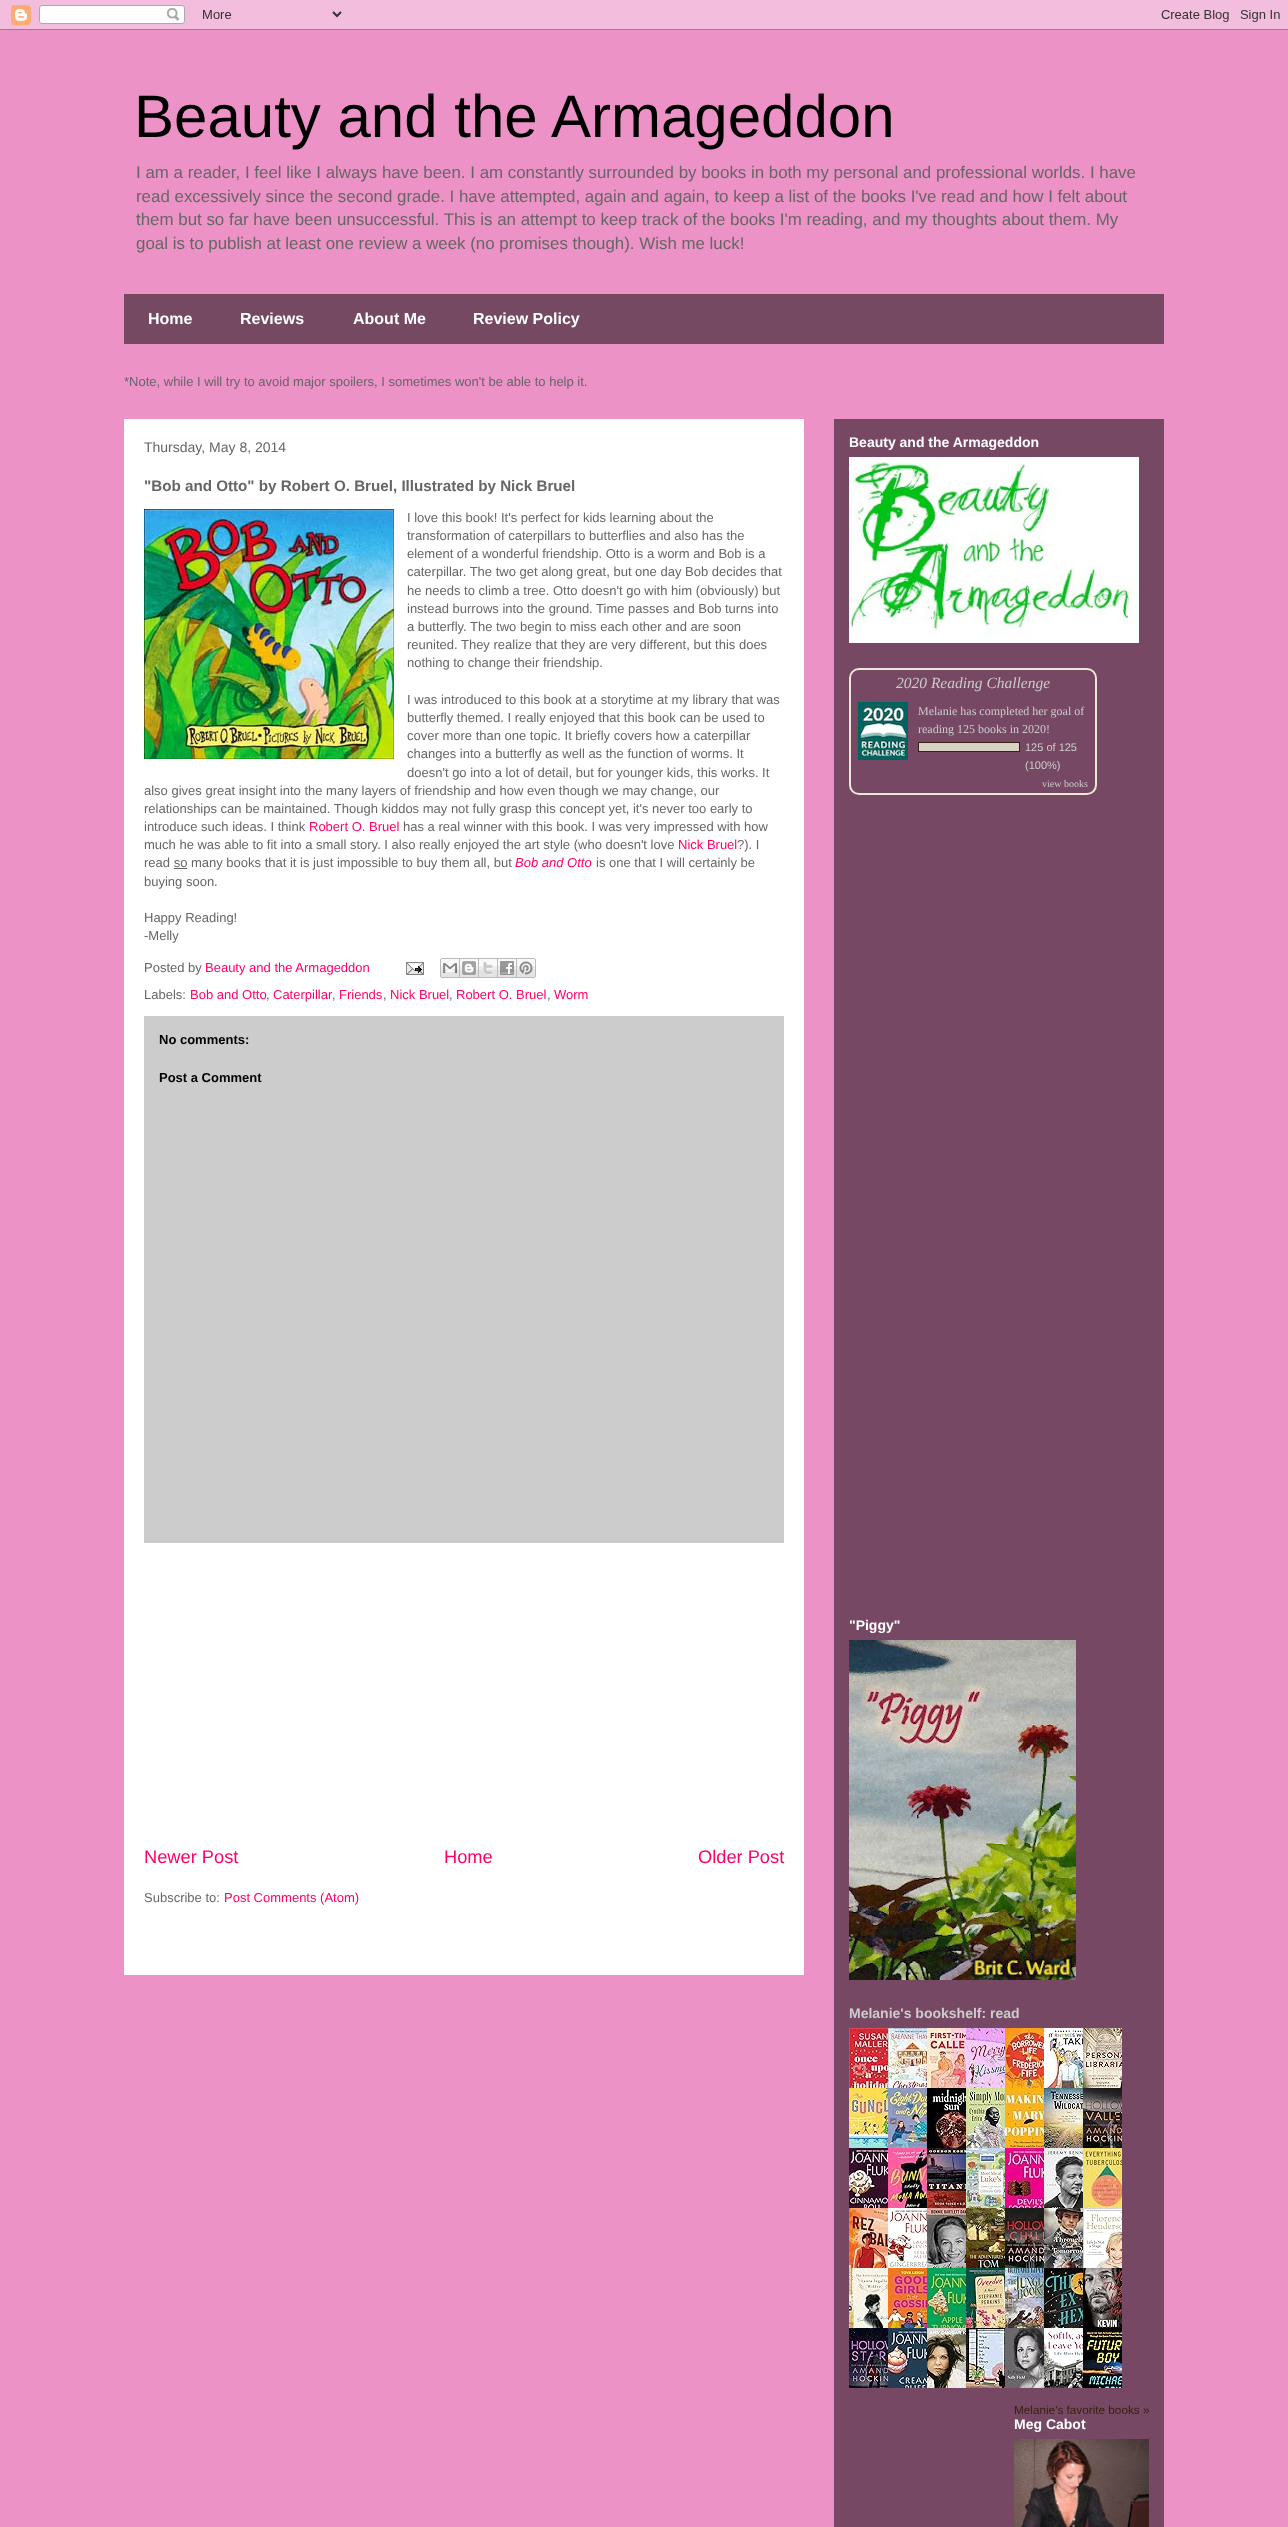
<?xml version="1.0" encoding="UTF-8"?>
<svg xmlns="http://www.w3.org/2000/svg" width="1288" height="2527">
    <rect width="100%" height="100%" fill="#EC92C6"/>
    <image x="0" y="0" width="1288" height="30" href="img_01.png"/>
    <text x="134" y="137" font-family="Liberation Sans" font-size="60" fill="#000000">Beauty and the Armageddon</text>
    <text font-family="Liberation Sans" font-size="16.9" fill="#666666">
        <tspan x="136" y="178">I am a reader, I feel like I always have been. I am constantly surrounded by books in both my personal and professional worlds. I have</tspan>
        <tspan x="136" y="202">read excessively since the second grade. I have attempted, again and again, to keep a list of the books I've read and how I felt about</tspan>
        <tspan x="136" y="225">them but so far have been unsuccessful. This is an attempt to keep track of the books I'm reading, and my thoughts about them. My</tspan>
        <tspan x="136" y="249">goal is to publish at least one review a week (no promises though). Wish me luck!</tspan>
    </text>
    <rect x="124" y="294" width="1040" height="50" fill="#764963"/>
    <text x="148" y="324" font-family="Liberation Sans" font-size="16" font-weight="700" fill="#FFFFFF">Home</text>
    <text x="240" y="324" font-family="Liberation Sans" font-size="16" font-weight="700" fill="#FFFFFF">Reviews</text>
    <text x="353" y="324" font-family="Liberation Sans" font-size="16" font-weight="700" fill="#FFFFFF">About Me</text>
    <text x="473" y="324" font-family="Liberation Sans" font-size="16" font-weight="700" fill="#FFFFFF">Review Policy</text>
    <text x="124" y="386" font-family="Liberation Sans" font-size="13" fill="#666666">*Note, while I will try to avoid major spoilers, I sometimes won't be able to help it.</text>
    <rect x="834" y="419" width="330" height="2108" fill="#774864"/>
    <rect x="124" y="419" width="680" height="1556" fill="#FFFFFF"/>
    <text x="144" y="452" font-family="Liberation Sans" font-size="14" fill="#666666">Thursday, May 8, 2014</text>
    <text x="144" y="491" font-family="Liberation Sans" font-size="15.2" font-weight="700" fill="#666666">"Bob and Otto" by Robert O. Bruel, Illustrated by Nick Bruel</text>
    <image x="144" y="509" width="250" height="250" href="img_02.png"/>
    <text font-family="Liberation Sans" font-size="13" fill="#666666">
        <tspan x="407" y="522">I love this book! It's perfect for kids learning about the</tspan>
        <tspan x="407" y="540">transformation of caterpillars to butterflies and also has the</tspan>
        <tspan x="407" y="558">element of a wonderful friendship. Otto is a worm and Bob is a</tspan>
        <tspan x="407" y="576">caterpillar. The two get along great, but one day Bob decides that</tspan>
        <tspan x="407" y="595">he needs to climb a tree. Otto doesn't go with him (obviously) but</tspan>
        <tspan x="407" y="613">instead burrows into the ground. Time passes and Bob turns into</tspan>
        <tspan x="407" y="631">a butterfly. The two begin to miss each other and are soon</tspan>
        <tspan x="407" y="649">reunited. They realize that they are very different, but this does</tspan>
        <tspan x="407" y="667">nothing to change their friendship.</tspan>
    </text>
    <text font-family="Liberation Sans" font-size="13" fill="#666666">
        <tspan x="407" y="704">I was introduced to this book at a storytime at my library that was</tspan>
        <tspan x="407" y="722">butterfly themed. I really enjoyed that this book can be used to</tspan>
        <tspan x="407" y="740">cover more than one topic. It briefly covers how a caterpillar</tspan>
        <tspan x="407" y="758">changes into a butterfly as well as the function of worms. It</tspan>
        <tspan x="407" y="777">doesn't go into a lot of detail, but for younger kids, this works. It</tspan>
    </text>
    <text font-family="Liberation Sans" font-size="13" fill="#666666">
        <tspan x="144" y="795">also gives great insight into the many layers of friendship and how even though we may change, our</tspan>
        <tspan x="144" y="813">relationships can be maintained. Though kiddos may not fully grasp this concept yet, it's never too early to</tspan>
        <tspan x="144" y="831">introduce such ideas. I think</tspan>
    </text>
    <text x="309" y="831" font-family="Liberation Sans" font-size="13" fill="#FF0066">Robert O. Bruel</text>
    <text x="403" y="831" font-family="Liberation Sans" font-size="13" fill="#666666">has a real winner with this book. I was very impressed with how</text>
    <text x="144" y="849" font-family="Liberation Sans" font-size="13" fill="#666666">much he was able to fit into a small story. I also really enjoyed the art style (who doesn't love</text>
    <text x="678" y="849" font-family="Liberation Sans" font-size="13" fill="#FF0066">Nick Bruel</text>
    <text x="737" y="849" font-family="Liberation Sans" font-size="13" fill="#666666">?). I</text>
    <text x="144" y="867" font-family="Liberation Sans" font-size="13" fill="#666666">read so many books that it is just impossible to buy them all, but</text>
    <text x="515" y="867" font-family="Liberation Sans" font-size="13" font-style="italic" fill="#FF0066">Bob and Otto</text>
    <text x="596" y="867" font-family="Liberation Sans" font-size="13" fill="#666666">is one that I will certainly be</text>
    <rect x="174" y="868" width="13" height="1" fill="#666666"/>
    <text x="144" y="886" font-family="Liberation Sans" font-size="13" fill="#666666">buying soon.</text>
    <text font-family="Liberation Sans" font-size="13" fill="#666666">
        <tspan x="144" y="922">Happy Reading!</tspan>
        <tspan x="144" y="940">-Melly</tspan>
    </text>
    <text x="144" y="972" font-family="Liberation Sans" font-size="13" fill="#666666">Posted by</text>
    <text x="205" y="972" font-family="Liberation Sans" font-size="13" fill="#FF0066">Beauty and the Armageddon</text>
    <image x="406" y="962" width="18" height="13" href="img_03.png"/>
    <image x="440" y="958" width="20" height="20" href="img_04.png"/>
    <image x="460" y="958" width="19" height="20" href="img_05.png"/>
    <image x="479" y="958" width="19" height="20" href="img_06.png"/>
    <image x="498" y="958" width="19" height="20" href="img_07.png"/>
    <image x="517" y="958" width="19" height="20" href="img_08.png"/>
    <text x="144" y="999" font-family="Liberation Sans" font-size="13" fill="#666666">Labels:</text>
    <text x="190" y="999" font-family="Liberation Sans" font-size="13" fill="#FF0066">Bob and Otto</text>
    <text x="266" y="999" font-family="Liberation Sans" font-size="13" fill="#666666">,</text>
    <text x="273" y="999" font-family="Liberation Sans" font-size="13" fill="#FF0066">Caterpillar</text>
    <text x="332" y="999" font-family="Liberation Sans" font-size="13" fill="#666666">,</text>
    <text x="339" y="999" font-family="Liberation Sans" font-size="13" fill="#FF0066">Friends</text>
    <text x="383" y="999" font-family="Liberation Sans" font-size="13" fill="#666666">,</text>
    <text x="390" y="999" font-family="Liberation Sans" font-size="13" fill="#FF0066">Nick Bruel</text>
    <text x="449" y="999" font-family="Liberation Sans" font-size="13" fill="#666666">,</text>
    <text x="456" y="999" font-family="Liberation Sans" font-size="13" fill="#FF0066">Robert O. Bruel</text>
    <text x="547" y="999" font-family="Liberation Sans" font-size="13" fill="#666666">,</text>
    <text x="554" y="999" font-family="Liberation Sans" font-size="13" fill="#FF0066">Worm</text>
    <rect x="144" y="1016" width="640" height="527" fill="#CCCCCC"/>
    <text x="159" y="1044" font-family="Liberation Sans" font-size="13" font-weight="700" fill="#000000">No comments:</text>
    <text x="159" y="1082" font-family="Liberation Sans" font-size="13" font-weight="700" fill="#000000">Post a Comment</text>
    <text x="144" y="1863" font-family="Liberation Sans" font-size="18.25" fill="#FF0066">Newer Post</text>
    <text x="444" y="1863" font-family="Liberation Sans" font-size="18.25" fill="#FF0066">Home</text>
    <text x="698" y="1863" font-family="Liberation Sans" font-size="18.25" fill="#FF0066">Older Post</text>
    <text x="144" y="1902" font-family="Liberation Sans" font-size="13" fill="#666666">Subscribe to:</text>
    <text x="224" y="1902" font-family="Liberation Sans" font-size="13" fill="#FF0066">Post Comments (Atom)</text>
    <text x="849" y="447" font-family="Liberation Sans" font-size="14" font-weight="700" fill="#FFFFFF">Beauty and the Armageddon</text>
    <image x="849" y="457" width="290" height="186" href="img_09.png"/>
    <rect x="850" y="669" width="246" height="125" rx="9" fill="none" stroke="#EBE8D5" stroke-width="2"/>
    <text x="896" y="688" font-family="Liberation Serif" font-size="15.5" font-style="italic" fill="#CCCCCC">2020 Reading Challenge</text>
    <image x="858" y="702" width="50" height="58" href="img_10.png"/>
    <text font-family="Liberation Serif" font-size="12" fill="#CCCCCC">
        <tspan x="918" y="715">Melanie has completed her goal of</tspan>
        <tspan x="918" y="733">reading 125 books in 2020!</tspan>
    </text>
    <rect x="918.5" y="742.5" width="101" height="9" fill="none" stroke="#382110"/>
    <rect x="919" y="743" width="100" height="8" fill="#D7D2C4"/>
    <text font-family="Liberation Sans" font-size="11" fill="#CCCCCC">
        <tspan x="1025" y="751">125 of 125</tspan>
        <tspan x="1025" y="769">(100%)</tspan>
    </text>
    <text x="1042" y="787" font-family="Liberation Serif" font-size="10" fill="#CCCCCC">view books</text>
    <text x="849" y="1630" font-family="Liberation Sans" font-size="14" font-weight="700" fill="#FFFFFF">"Piggy"</text>
    <image x="849" y="1640" width="227" height="340" href="img_11.png"/>
    <text x="849" y="2018" font-family="Liberation Sans" font-size="14" font-weight="700" fill="#CCCCCC">Melanie's bookshelf: read</text>
    <image x="849" y="2028" width="39" height="60" href="img_12.png"/>
    <image x="888" y="2028" width="39" height="60" href="img_13.png"/>
    <image x="927" y="2028" width="39" height="60" href="img_14.png"/>
    <image x="966" y="2028" width="39" height="60" href="img_15.png"/>
    <image x="1005" y="2028" width="39" height="60" href="img_16.png"/>
    <image x="1044" y="2028" width="39" height="60" href="img_17.png"/>
    <image x="1083" y="2028" width="39" height="60" href="img_18.png"/>
    <image x="849" y="2088" width="39" height="60" href="img_19.png"/>
    <image x="888" y="2088" width="39" height="60" href="img_20.png"/>
    <image x="927" y="2088" width="39" height="60" href="img_21.png"/>
    <image x="966" y="2088" width="39" height="60" href="img_22.png"/>
    <image x="1005" y="2088" width="39" height="60" href="img_23.png"/>
    <image x="1044" y="2088" width="39" height="60" href="img_24.png"/>
    <image x="1083" y="2088" width="39" height="60" href="img_25.png"/>
    <image x="849" y="2148" width="39" height="60" href="img_26.png"/>
    <image x="888" y="2148" width="39" height="60" href="img_27.png"/>
    <image x="927" y="2148" width="39" height="60" href="img_28.png"/>
    <image x="966" y="2148" width="39" height="60" href="img_29.png"/>
    <image x="1005" y="2148" width="39" height="60" href="img_30.png"/>
    <image x="1044" y="2148" width="39" height="60" href="img_31.png"/>
    <image x="1083" y="2148" width="39" height="60" href="img_32.png"/>
    <image x="849" y="2208" width="39" height="60" href="img_33.png"/>
    <image x="888" y="2208" width="39" height="60" href="img_34.png"/>
    <image x="927" y="2208" width="39" height="60" href="img_35.png"/>
    <image x="966" y="2208" width="39" height="60" href="img_36.png"/>
    <image x="1005" y="2208" width="39" height="60" href="img_37.png"/>
    <image x="1044" y="2208" width="39" height="60" href="img_38.png"/>
    <image x="1083" y="2208" width="39" height="60" href="img_39.png"/>
    <image x="849" y="2268" width="39" height="60" href="img_40.png"/>
    <image x="888" y="2268" width="39" height="60" href="img_41.png"/>
    <image x="927" y="2268" width="39" height="60" href="img_42.png"/>
    <image x="966" y="2268" width="39" height="60" href="img_43.png"/>
    <image x="1005" y="2268" width="39" height="60" href="img_44.png"/>
    <image x="1044" y="2268" width="39" height="60" href="img_45.png"/>
    <image x="1083" y="2268" width="39" height="60" href="img_46.png"/>
    <image x="849" y="2328" width="39" height="60" href="img_47.png"/>
    <image x="888" y="2328" width="39" height="60" href="img_48.png"/>
    <image x="927" y="2328" width="39" height="60" href="img_49.png"/>
    <image x="966" y="2328" width="39" height="60" href="img_50.png"/>
    <image x="1005" y="2328" width="39" height="60" href="img_51.png"/>
    <image x="1044" y="2328" width="39" height="60" href="img_52.png"/>
    <image x="1083" y="2328" width="39" height="60" href="img_53.png"/>
    <text x="1014" y="2414" font-family="Liberation Sans" font-size="11.75" fill="#382110">Melanie's favorite books »</text>
    <text x="1014" y="2429" font-family="Liberation Sans" font-size="14" font-weight="700" fill="#FFFFFF">Meg Cabot</text>
    <image x="1014" y="2439" width="135" height="88" href="img_54.png"/>
</svg>
